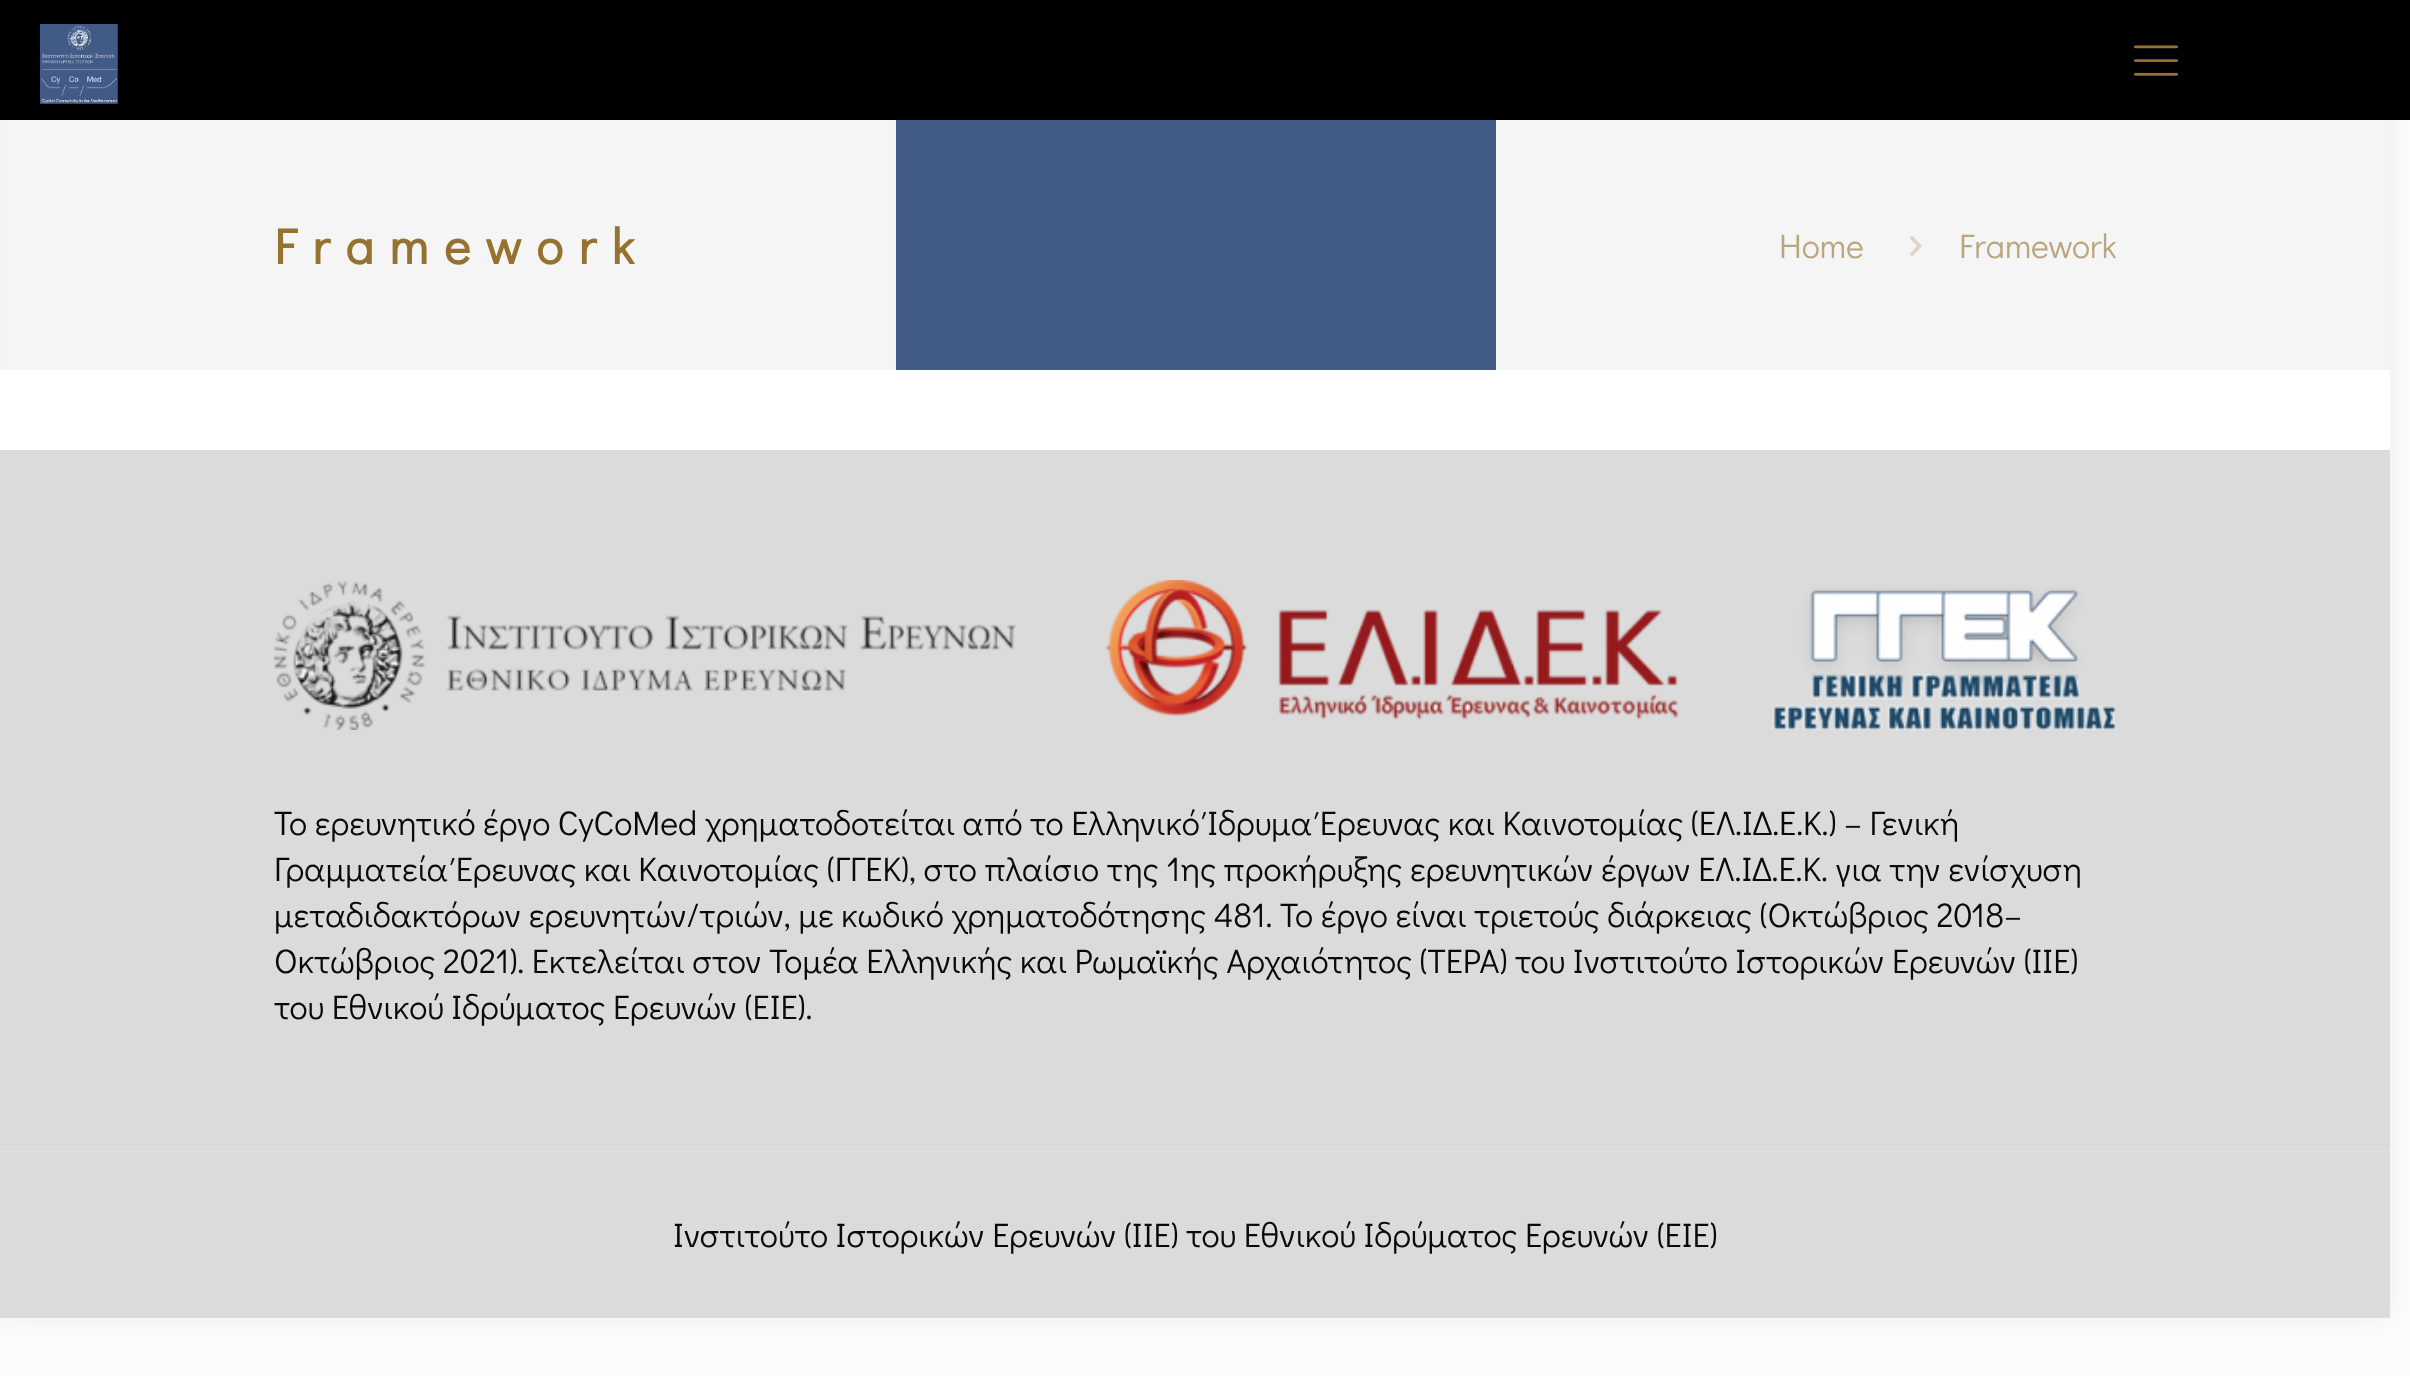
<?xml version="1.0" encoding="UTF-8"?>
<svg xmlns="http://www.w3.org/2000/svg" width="2410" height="1376">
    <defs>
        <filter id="blur1" x="-50%" y="-200%" width="200%" height="500%"><feGaussianBlur stdDeviation="15"/></filter>
    </defs>
    <rect width="100%" height="100%" fill="#FCFCFC"/>
    <rect x="0" y="0" width="2390" height="1318" fill="#000000" fill-opacity="0.06" filter="url(#blur1)"/>
    <rect x="0" y="0" width="2410" height="120" fill="#000000"/>
    <image x="40" y="24" width="79" height="80" href="img_01.png"/>
    <image x="2134" y="45" width="44" height="31" href="img_02.png"/>
    <rect x="0" y="370" width="2390" height="80" fill="#FFFFFF"/>
    <rect x="5" y="120" width="2380" height="250" fill="#F5F5F5"/>
    <rect x="896" y="120" width="600" height="250" fill="#425A86"/>
    <text x="274" y="264" font-family="Didact Gothic" font-size="50" font-weight="700" letter-spacing="16" fill="#957230">Framework</text>
    <text x="1779" y="258" font-family="Didact Gothic" font-size="34" fill="#BBA67F">Home</text>
    <image x="1910" y="236" width="12" height="20" href="img_03.png"/>
    <text x="1959" y="258" font-family="Didact Gothic" font-size="34" fill="#BBA67F">Framework</text>
    <rect x="0" y="450" width="2390" height="868" fill="#DBDBDB"/>
    <image x="274" y="580" width="1842" height="150" href="img_04.png"/>
    <text font-family="Didact Gothic" font-size="34" fill="#0A0909">
        <tspan x="274" y="835">Το ερευνητικό έργο CyCoMed χρηματοδοτείται από το Ελληνικό Ίδρυμα Έρευνας και Καινοτομίας (ΕΛ.ΙΔ.Ε.Κ.) – Γενική</tspan>
        <tspan x="274" y="881">Γραμματεία Έρευνας και Καινοτομίας (ΓΓΕΚ), στο πλαίσιο της 1ης προκήρυξης ερευνητικών έργων ΕΛ.ΙΔ.Ε.Κ. για την ενίσχυση</tspan>
        <tspan x="274" y="927">μεταδιδακτόρων ερευνητών/τριών, με κωδικό χρηματοδότησης 481. Το έργο είναι τριετούς διάρκειας (Οκτώβριος 2018–</tspan>
        <tspan x="274" y="973">Οκτώβριος 2021). Εκτελείται στον Τομέα Ελληνικής και Ρωμαϊκής Αρχαιότητος (ΤΕΡΑ) του Ινστιτούτο Ιστορικών Ερευνών (ΙΙΕ)</tspan>
        <tspan x="274" y="1019">του Εθνικού Ιδρύματος Ερευνών (ΕΙΕ).</tspan>
    </text>
    <rect x="0" y="1150" width="2390" height="2" fill="#DFDFDF"/>
    <text x="673" y="1247" font-family="Didact Gothic" font-size="34" fill="#0A0909">Ινστιτούτο Ιστορικών Ερευνών (ΙΙΕ) του Εθνικού Ιδρύματος Ερευνών (ΕΙΕ)</text>
</svg>
